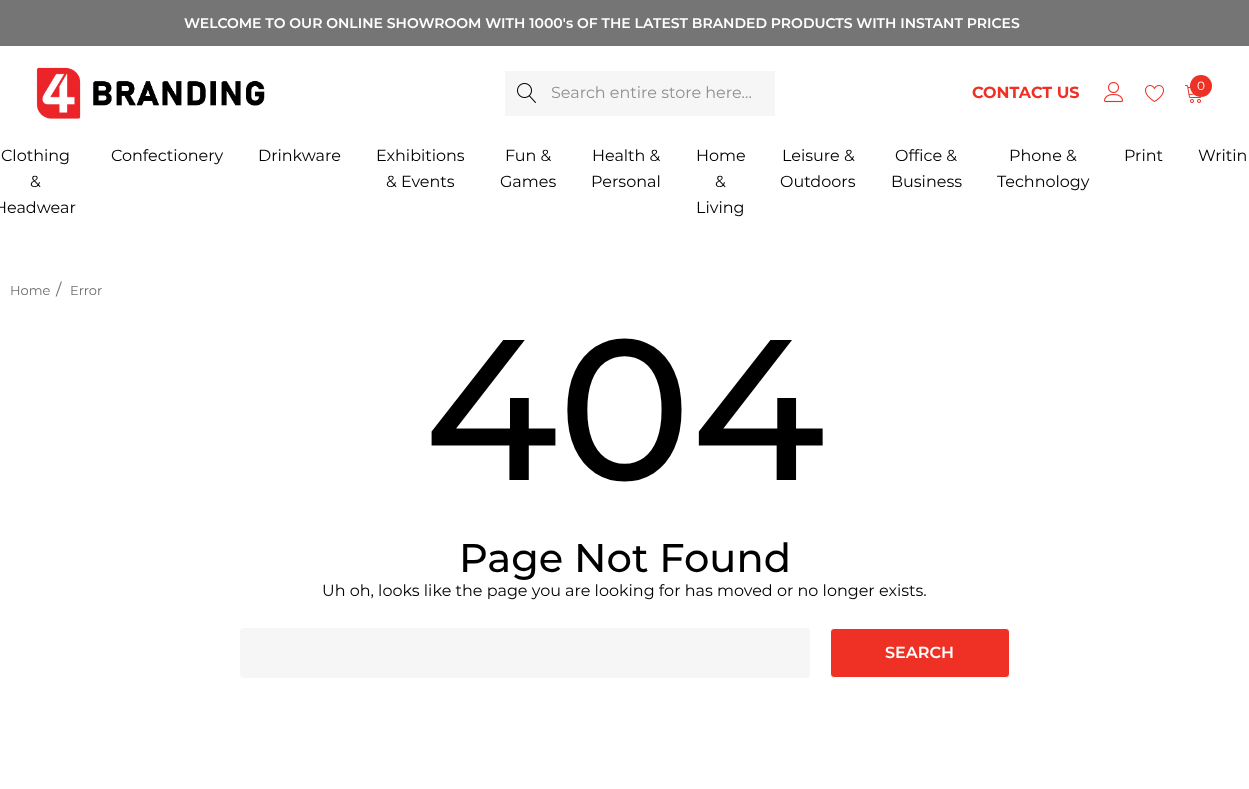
<?xml version="1.0" encoding="UTF-8"?>
<svg xmlns="http://www.w3.org/2000/svg" width="1249" height="789">
    <rect width="100%" height="100%" fill="#FFFFFF"/>
    <rect x="0" y="0" width="1249" height="46" fill="#757575"/>
    <text x="184" y="28" font-family="Montserrat" font-size="14" font-weight="600" fill="#FFFFFF">WELCOME TO OUR ONLINE SHOWROOM WITH 1000's OF THE LATEST BRANDED PRODUCTS WITH INSTANT PRICES</text>
    <image x="36" y="67" width="229" height="52" href="img_01.png"/>
    <rect x="505" y="71" width="270" height="45" fill="#F6F6F6"/>
    <image x="517" y="83" width="19" height="20" href="img_02.png"/>
    <text x="551" y="98" font-family="Montserrat" font-size="16" fill="#919191">Search entire store here...</text>
    <text x="972" y="98" font-family="Montserrat" font-size="16" font-weight="700" fill="#EE3124">CONTACT US</text>
    <image x="1104" y="82" width="19" height="21" href="img_03.png"/>
    <image x="1145" y="85" width="19" height="17" href="img_04.png"/>
    <image x="1185" y="85" width="16" height="18" href="img_05.png"/>
    <circle cx="1201" cy="86" r="11" fill="#EE3124"/>
    <text x="1197" y="90" font-family="Montserrat" font-size="12" fill="#FFFFFF">0</text>
    <text x="1" y="161" font-family="Montserrat" font-size="16" fill="#000000">Clothing</text>
    <text x="30" y="187" font-family="Montserrat" font-size="16" fill="#000000">&amp;</text>
    <text x="-6" y="213" font-family="Montserrat" font-size="16" fill="#000000">Headwear</text>
    <text x="111" y="161" font-family="Montserrat" font-size="16" fill="#000000">Confectionery</text>
    <text x="258" y="161" font-family="Montserrat" font-size="16" fill="#000000">Drinkware</text>
    <text x="376" y="161" font-family="Montserrat" font-size="16" fill="#000000">Exhibitions</text>
    <text x="386" y="187" font-family="Montserrat" font-size="16" fill="#000000">&amp; Events</text>
    <text x="505" y="161" font-family="Montserrat" font-size="16" fill="#000000">Fun &amp;</text>
    <text x="500" y="187" font-family="Montserrat" font-size="16" fill="#000000">Games</text>
    <text x="592" y="161" font-family="Montserrat" font-size="16" fill="#000000">Health &amp;</text>
    <text x="591" y="187" font-family="Montserrat" font-size="16" fill="#000000">Personal</text>
    <text x="696" y="161" font-family="Montserrat" font-size="16" fill="#000000">Home</text>
    <text x="715" y="187" font-family="Montserrat" font-size="16" fill="#000000">&amp;</text>
    <text x="696" y="213" font-family="Montserrat" font-size="16" fill="#000000">Living</text>
    <text x="782" y="161" font-family="Montserrat" font-size="16" fill="#000000">Leisure &amp;</text>
    <text x="780" y="187" font-family="Montserrat" font-size="16" fill="#000000">Outdoors</text>
    <text x="895" y="161" font-family="Montserrat" font-size="16" fill="#000000">Office &amp;</text>
    <text x="891" y="187" font-family="Montserrat" font-size="16" fill="#000000">Business</text>
    <text x="1009" y="161" font-family="Montserrat" font-size="16" fill="#000000">Phone &amp;</text>
    <text x="997" y="187" font-family="Montserrat" font-size="16" fill="#000000">Technology</text>
    <text x="1124" y="161" font-family="Montserrat" font-size="16" fill="#000000">Print</text>
    <text x="1198" y="161" font-family="Montserrat" font-size="16" fill="#000000">Writin</text>
    <text x="10" y="295" font-family="Montserrat" font-size="13" fill="#6F6F6F">Home</text>
    <text x="56" y="295" font-family="Montserrat" font-size="16" fill="#6F6F6F">/</text>
    <text x="70" y="295" font-family="Montserrat" font-size="13" fill="#6F6F6F">Error</text>
    <text x="424" y="480" font-family="Montserrat" font-size="200" font-weight="500" fill="#000000">404</text>
    <text x="459" y="572" font-family="Montserrat" font-size="40" font-weight="500" fill="#000000">Page Not Found</text>
    <text x="322" y="596" font-family="Montserrat" font-size="16" fill="#000000">Uh oh, looks like the page you are looking for has moved or no longer exists.</text>
    <rect x="240" y="628" width="570" height="50" rx="4" fill="#F6F6F6"/>
    <rect x="830.5" y="628.5" width="179" height="49" rx="3.5" fill="#EE3124" stroke="#FFFFFF"/>
    <text x="885" y="658" font-family="Montserrat" font-size="16" font-weight="600" fill="#FFFFFF">SEARCH</text>
</svg>
